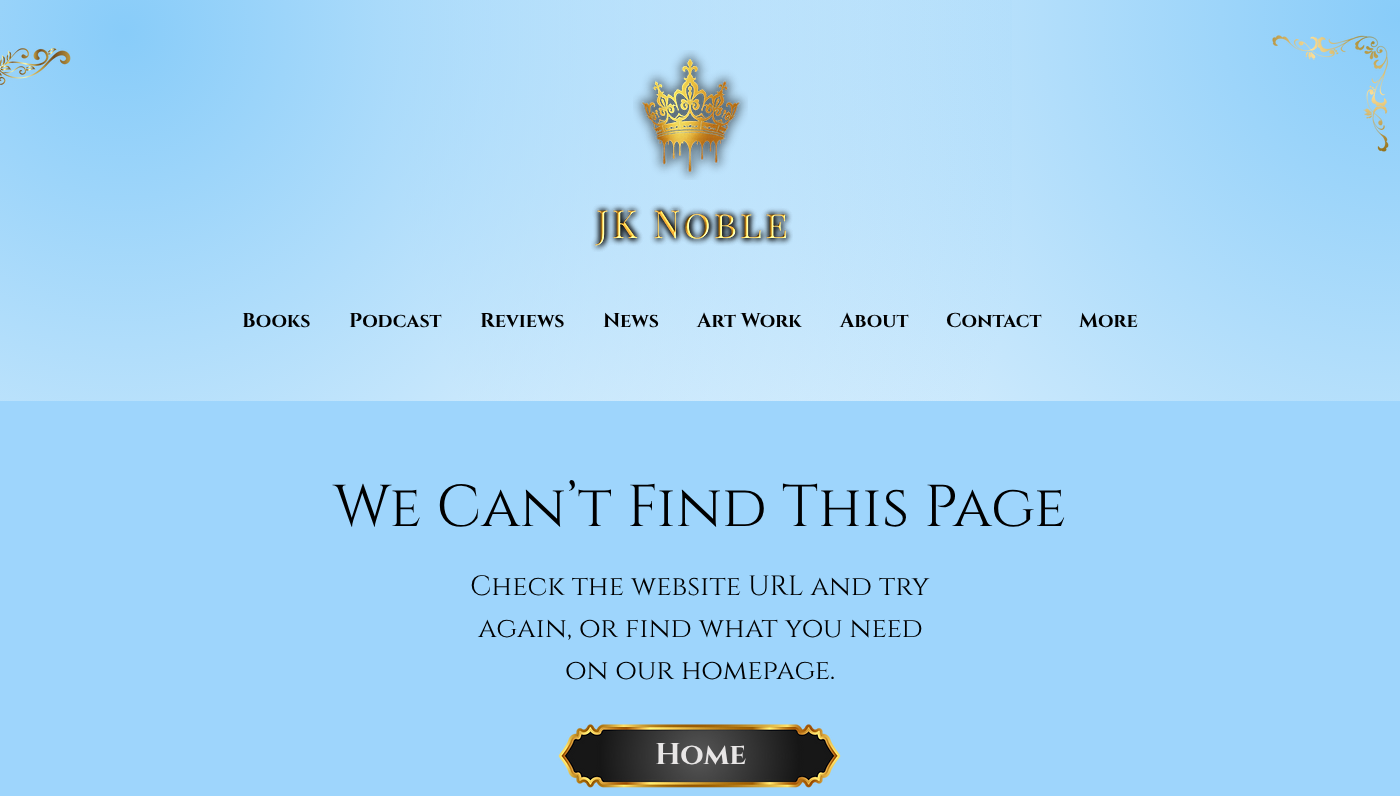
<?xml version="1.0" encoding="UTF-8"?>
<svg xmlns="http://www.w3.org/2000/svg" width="1400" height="796">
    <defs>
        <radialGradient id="g1" gradientUnits="userSpaceOnUse" cx="1400" cy="18" r="1452"><stop offset="0" stop-color="#88CCF9"/><stop offset="0.7" stop-color="#FFFFFF"/></radialGradient>
        <radialGradient id="g2" gradientUnits="userSpaceOnUse" cx="124" cy="33" r="1328"><stop offset="0" stop-color="#88CCF9"/><stop offset="0.7" stop-color="#88CCF9" stop-opacity="0"/></radialGradient>
    </defs>
    <rect width="100%" height="100%" fill="#9ED5FC"/>
    <rect x="0" y="0" width="1400" height="401" fill="url(#g1)"/>
    <rect x="0" y="0" width="1012" height="401" fill="url(#g2)"/>
    <image x="0" y="48" width="71" height="37" href="img_01.png"/>
    <image x="633" y="50" width="115" height="130" href="img_02.png"/>
    <image x="1272" y="35" width="117" height="117" href="img_03.png"/>
    <image x="591" y="204" width="202" height="48" href="img_04.png"/>
    <text x="242" y="327" font-family="Cinzel" font-size="20" font-weight="700" fill="#000000">Books</text>
    <text x="349" y="327" font-family="Cinzel" font-size="20" font-weight="700" fill="#000000">Podcast</text>
    <text x="480" y="327" font-family="Cinzel" font-size="20" font-weight="700" fill="#000000">Reviews</text>
    <text x="603" y="327" font-family="Cinzel" font-size="20" font-weight="700" fill="#000000">News</text>
    <text x="697" y="327" font-family="Cinzel" font-size="20" font-weight="700" fill="#000000">Art Work</text>
    <text x="840" y="327" font-family="Cinzel" font-size="20" font-weight="700" fill="#000000">About</text>
    <text x="946" y="327" font-family="Cinzel" font-size="20" font-weight="700" fill="#000000">Contact</text>
    <text x="1079" y="327" font-family="Cinzel" font-size="20" font-weight="700" fill="#000000">More</text>
    <text x="333" y="526" font-family="Cinzel" font-size="59" fill="#000000">We Can’t Find This Page</text>
    <text x="470" y="595" font-family="Cinzel" font-size="28" fill="#000000">Check the website URL and try</text>
    <text x="478" y="637" font-family="Cinzel" font-size="28" fill="#000000">again, or find what you need</text>
    <text x="565" y="679" font-family="Cinzel" font-size="28" fill="#000000">on our homepage.</text>
    <image x="558" y="724" width="283" height="64" href="img_05.png"/>
    <text x="655" y="764" font-family="Cinzel" font-size="30" font-weight="700" fill="#E8E6E6">Home</text>
</svg>
